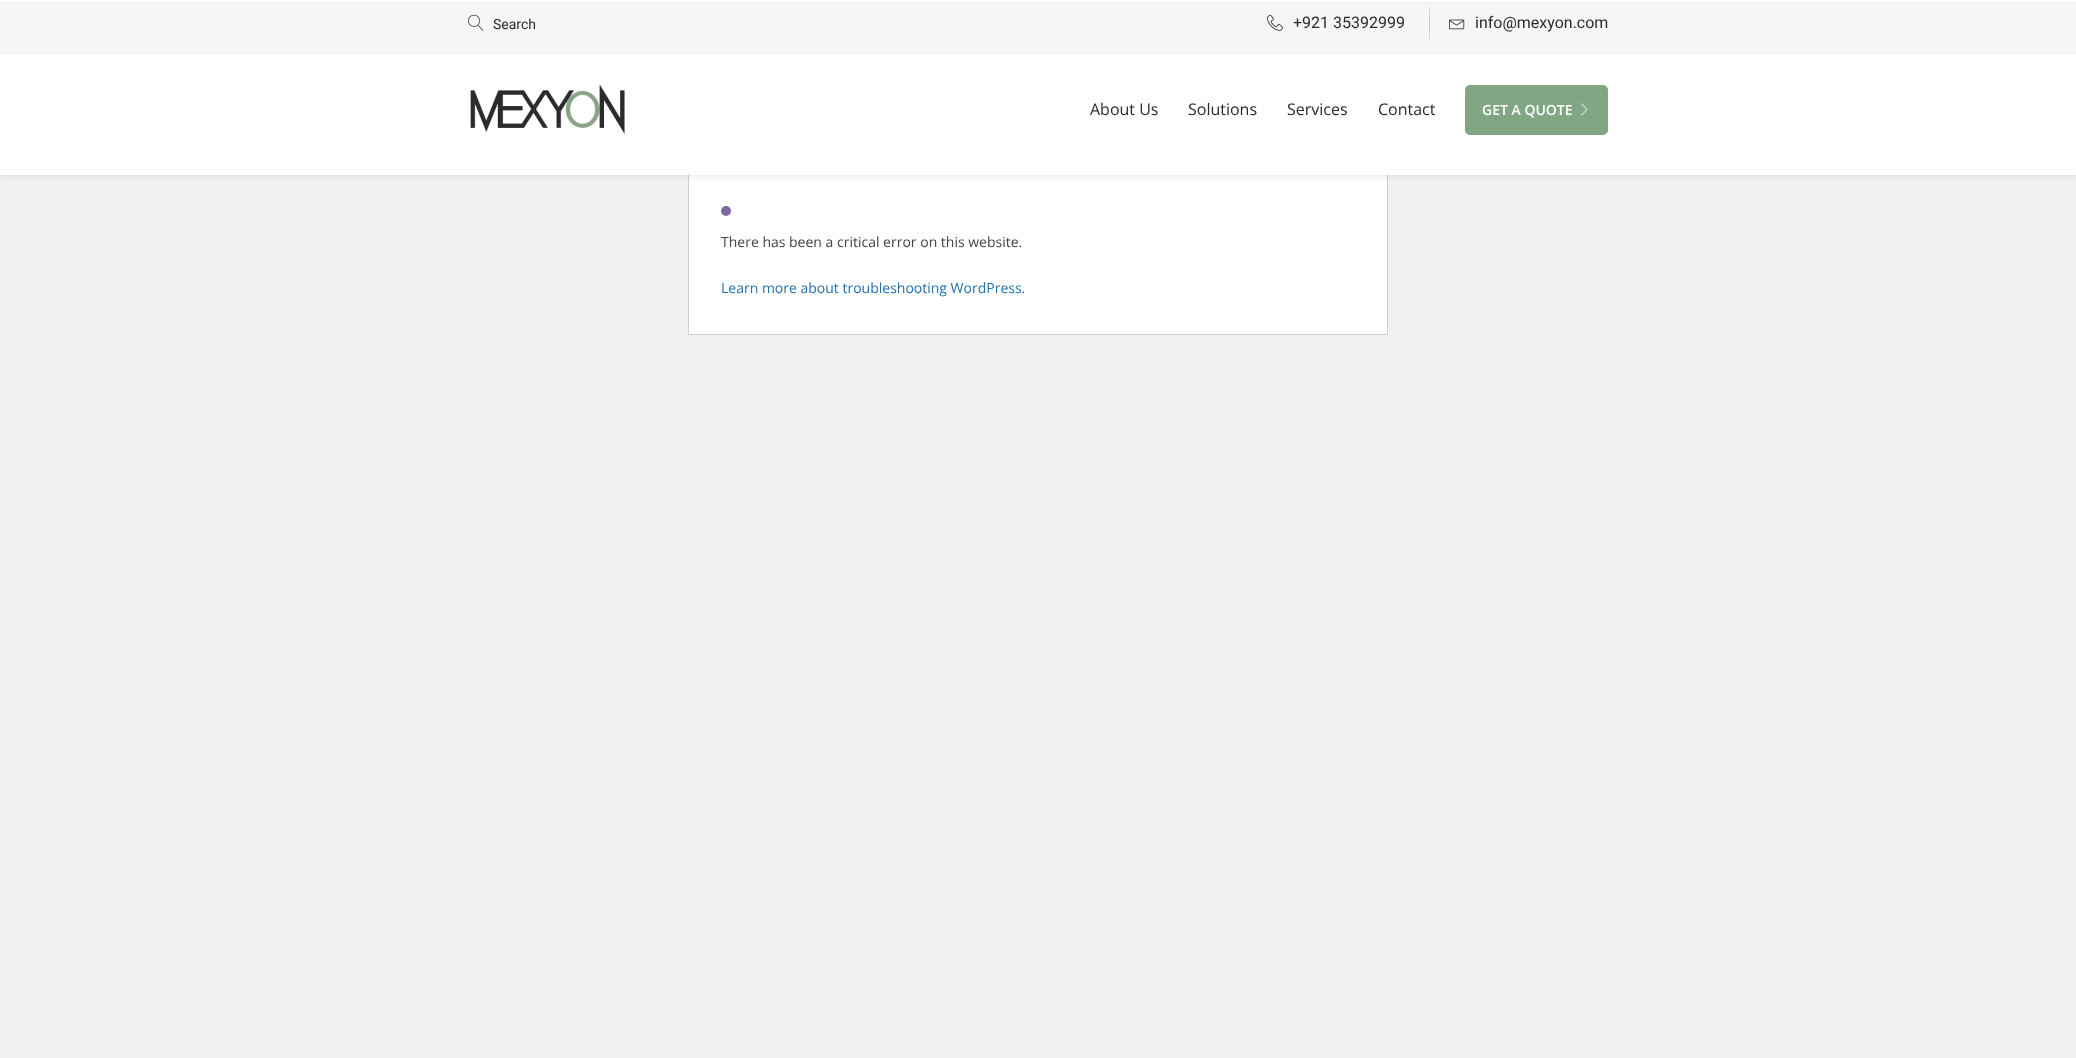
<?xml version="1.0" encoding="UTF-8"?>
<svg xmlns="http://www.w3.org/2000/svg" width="2076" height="1058">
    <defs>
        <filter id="blur1" x="-50%" y="-200%" width="200%" height="500%"><feGaussianBlur stdDeviation="3.5"/></filter>
    </defs>
    <rect width="100%" height="100%" fill="#F1F1F1"/>
    <rect x="689" y="175" width="698" height="159" fill="#FFFFFF"/>
    <rect x="688.5" y="50.5" width="699" height="284" fill="none" stroke="#CCD0D4"/>
    <rect x="0" y="0" width="2076" height="175" fill="#000000" fill-opacity="0.12" filter="url(#blur1)"/>
    <rect x="0" y="0" width="2076" height="175" fill="#FFFFFF"/>
    <rect x="0" y="1" width="2076" height="54" fill="#F5F6F7"/>
    <image x="468" y="14" width="16" height="17" href="img_01.png"/>
    <text x="493" y="29" font-family="Roboto" font-size="14" fill="#2B2B2B">Search</text>
    <image x="1267" y="14" width="16" height="17" href="img_02.png"/>
    <text x="1293" y="28" font-family="Roboto" font-size="16" fill="#2B2B2B">+921 35392999</text>
    <image x="1429" y="2" width="1" height="43" href="img_03.png"/>
    <image x="1449" y="19" width="16" height="11" href="img_04.png"/>
    <text x="1475" y="28" font-family="Roboto" font-size="16" fill="#2B2B2B">info@mexyon.com</text>
    <image x="470" y="84" width="155" height="50" href="img_05.png"/>
    <text x="1090" y="115" font-family="Open Sans" font-size="16" fill="#2B2B2B">About Us</text>
    <text x="1188" y="115" font-family="Open Sans" font-size="16" fill="#2B2B2B">Solutions</text>
    <text x="1287" y="115" font-family="Open Sans" font-size="16" fill="#2B2B2B">Services</text>
    <text x="1378" y="115" font-family="Open Sans" font-size="16" fill="#2B2B2B">Contact</text>
    <rect x="1466" y="86" width="141" height="48" rx="4" fill="#81A683" stroke="#81A683" stroke-width="2"/>
    <text x="1482" y="115" font-family="Open Sans" font-size="14" font-weight="600" fill="#FFFFFF">GET A QUOTE</text>
    <image x="1581" y="103" width="7" height="13" href="img_06.png"/>
    <circle cx="726" cy="211" r="5" fill="#7E67A0"/>
    <text x="721" y="247" font-family="Open Sans" font-size="14" fill="#444444">There has been a critical error on this website.</text>
    <text x="721" y="293" font-family="Open Sans" font-size="14" fill="#2271B1">Learn more about troubleshooting WordPress.</text>
</svg>
